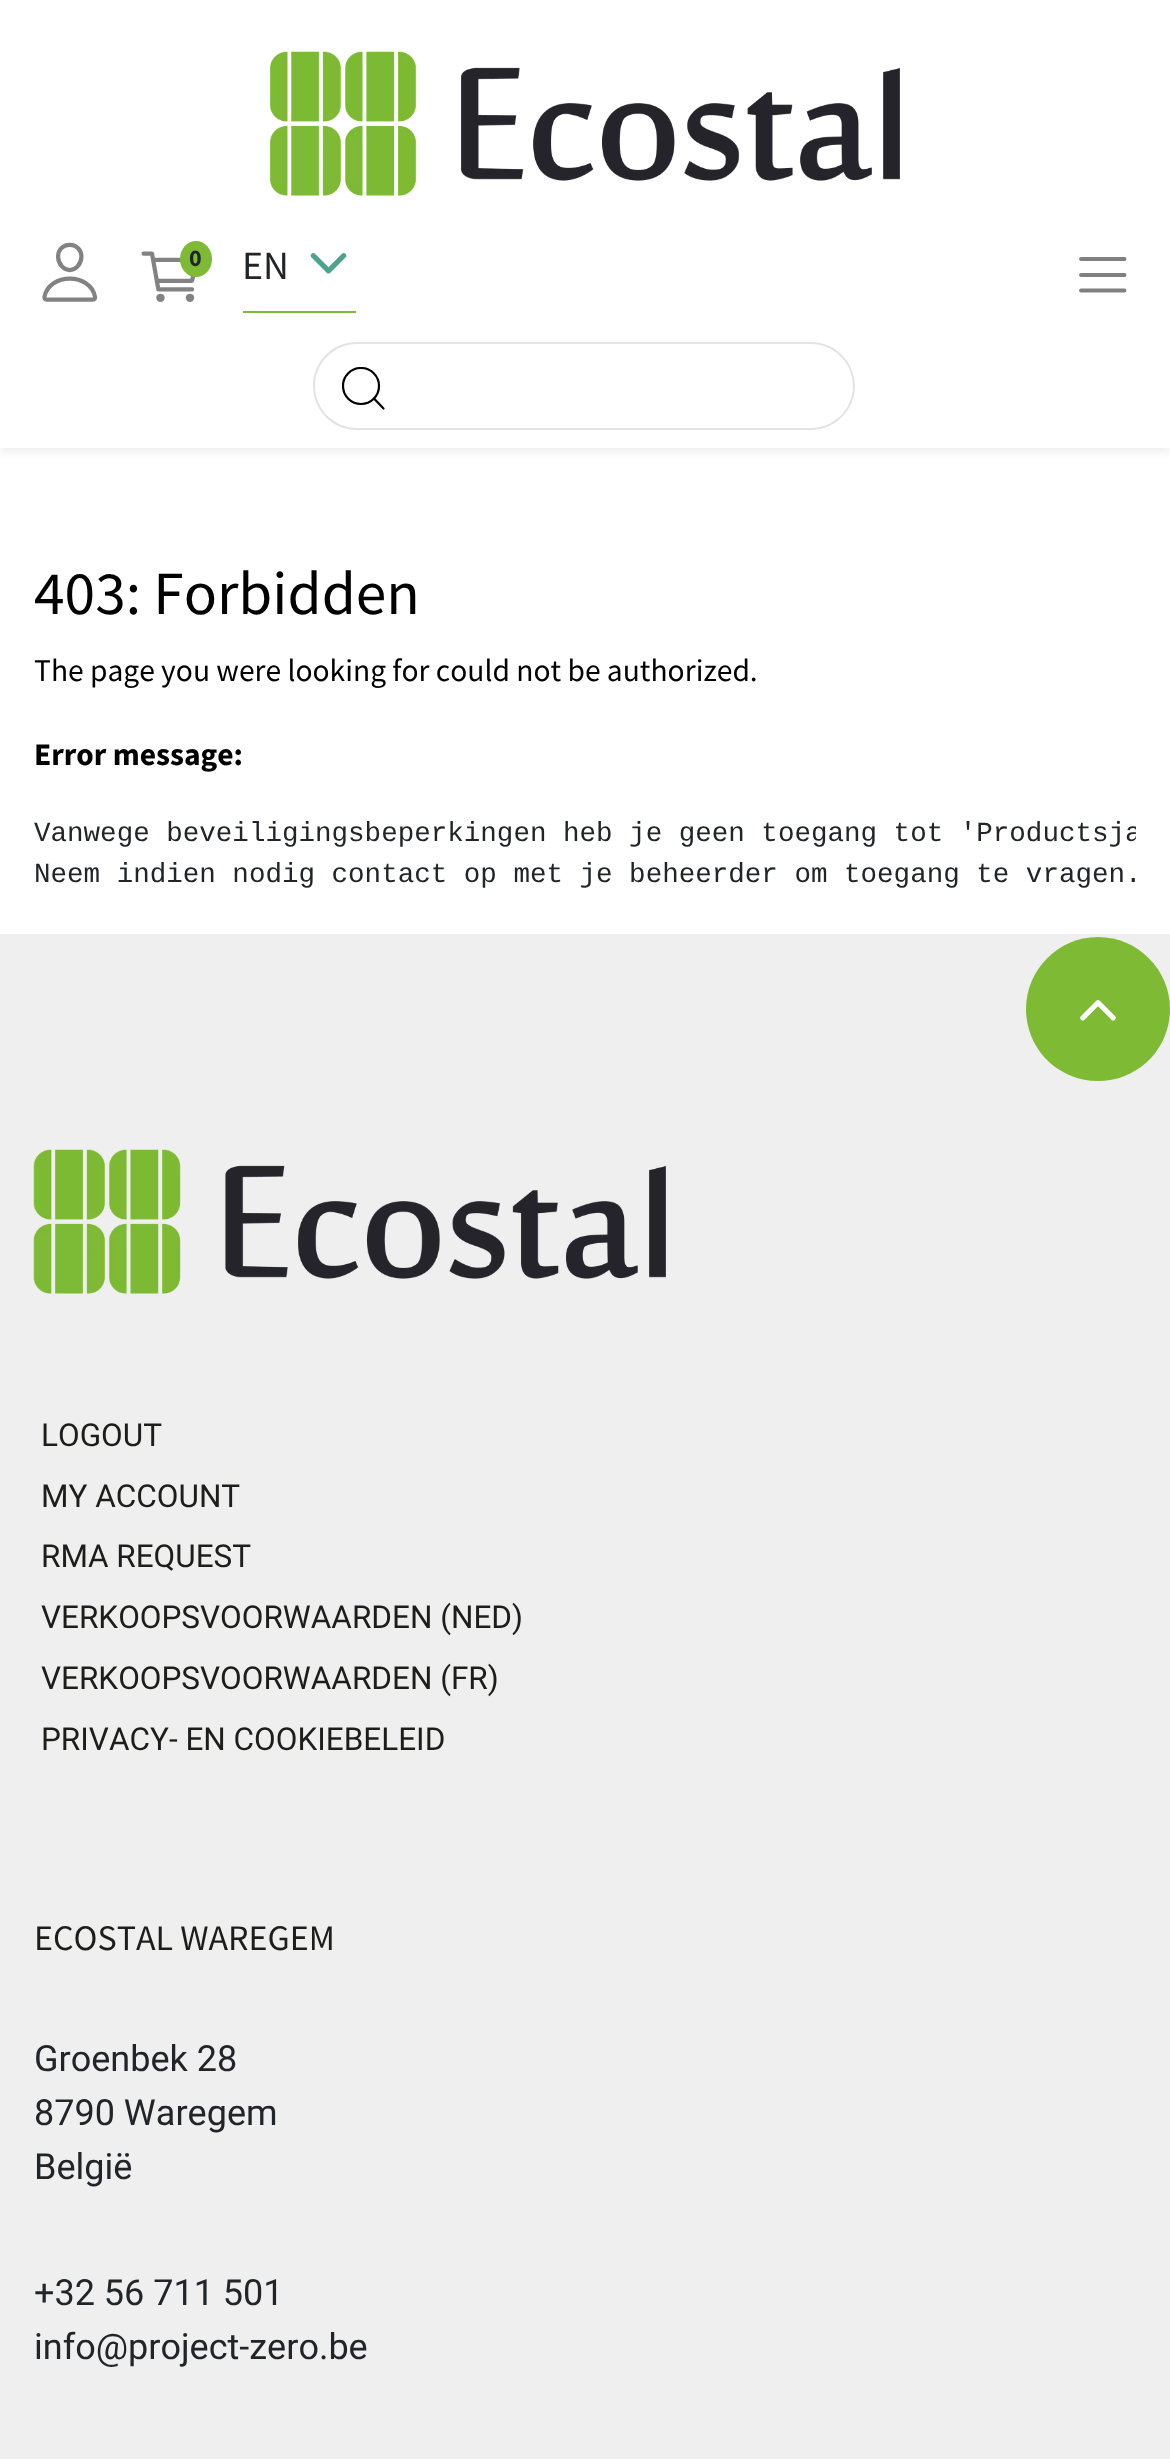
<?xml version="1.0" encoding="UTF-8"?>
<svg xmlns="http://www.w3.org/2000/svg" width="1170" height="2459">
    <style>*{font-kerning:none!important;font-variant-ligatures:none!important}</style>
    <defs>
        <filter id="blur1" x="-50%" y="-200%" width="200%" height="500%"><feGaussianBlur stdDeviation="4.5"/></filter>
        <clipPath id="clip1"><rect x="342" y="367" width="45" height="43"/></clipPath>
        <clipPath id="clip2"><rect x="34" y="815" width="1102" height="83"/></clipPath>
    </defs>
    <rect width="100%" height="100%" fill="#FFFFFF"/>
    <rect x="0" y="5" width="1170" height="447" fill="#000000" fill-opacity="0.07" filter="url(#blur1)"/>
    <rect x="0" y="0" width="1170" height="448" fill="#FFFFFF"/>
    <image x="270" y="51" width="630" height="145" href="img_01.png"/>
    <image x="42" y="242" width="56" height="60" href="img_02.png"/>
    <image x="141" y="251" width="55" height="51" href="img_03.png"/>
    <ellipse cx="196" cy="259" rx="16" ry="18" fill="#7EBA33"/>
    <text x="189" y="266" font-family="Source Sans Pro" font-size="24" font-weight="700" fill="#212529">0</text>
    <rect x="243" y="311" width="113" height="2" fill="#7EBA33"/>
    <text x="242" y="279" font-family="Source Sans Pro" font-size="40" fill="#212529">EN</text>
    <image x="310" y="253" width="37" height="21" href="img_04.png"/>
    <path d="M 1081 259 H 1124.5 M 1081 275 H 1124.5 M 1081 290.5 H 1124.5" fill="none" stroke="#808080" stroke-width="3.9" stroke-linecap="round"/>
    <path d="M 357 342 H 414 V 430 H 357 C 332 430 313 410 313 386 C 313 362 332 342 357 342 Z M 357 344 H 414 V 428 H 357 C 334 428 315 409 315 386 C 315 363 334 344 357 344 Z" fill="#E3E3E3" fill-rule="evenodd"/>
    <g clip-path="url(#clip1)">
        <path d="M 361 404 C 371 404 379 396 379 386 C 379 376 371 368 361 368 C 351 368 343 376 343 386 C 343 396 351 404 361 404 Z" fill="none" stroke="#000000" stroke-width="2.2" stroke-linecap="round" stroke-linejoin="round"/>
    </g>
    <path d="M 383.5 408.5 L 374 398.5" fill="none" stroke="#000000" stroke-width="2.2" stroke-linecap="round" stroke-linejoin="round"/>
    <path d="M 414 342 H 811 C 835 342 855 362 855 386 C 855 410 835 430 811 430 H 414 Z M 414 344 H 811 C 834 344 853 363 853 386 C 853 409 834 428 811 428 H 414 Z" fill="#E3E3E3" fill-rule="evenodd"/>
    <text x="34" y="614" font-family="Source Sans Pro" font-size="61.5" fill="#000000">403: Forbidden</text>
    <text x="34" y="681" font-family="Source Sans Pro" font-size="31.5" fill="#000000">The page you were looking for could not be authorized.</text>
    <text x="34" y="765" font-family="Source Sans Pro" font-size="31.5" font-weight="700" fill="#000000">Error message:</text>
    <g clip-path="url(#clip2)">
        <text x="34" y="841" font-family="Liberation Mono" font-size="27.55" fill="#212529">Vanwege beveiligingsbeperkingen heb je geen toegang tot 'Productsja</text>
    </g>
    <text x="34" y="882" font-family="Liberation Mono" font-size="27.55" fill="#212529">Neem indien nodig contact op met je beheerder om toegang te vragen.</text>
    <rect x="0" y="934" width="1170" height="1525" fill="#EFEFEF"/>
    <path d="M 1098 1081 C 1058 1081 1026 1049 1026 1009 C 1026 970 1058 937 1098 937 C 1138 937 1170 970 1170 1009 C 1170 1049 1138 1081 1098 1081 Z" fill="#7EBA33"/>
    <image x="1080" y="1000" width="36" height="21" href="img_05.png"/>
    <image x="33" y="1149" width="633" height="145" href="img_06.png"/>
    <text font-family="Roboto" font-size="31.5" fill="#1D1D1B">
        <tspan x="41" y="1446">LOGOUT</tspan>
        <tspan x="41" y="1507">MY ACCOUNT</tspan>
        <tspan x="41" y="1567">RMA REQUEST</tspan>
        <tspan x="41" y="1628">VERKOOPSVOORWAARDEN (NED)</tspan>
        <tspan x="41" y="1689">VERKOOPSVOORWAARDEN (FR)</tspan>
        <tspan x="41" y="1750">PRIVACY- EN COOKIEBELEID</tspan>
    </text>
    <text x="34" y="1950" font-family="Source Sans Pro" font-size="36" fill="#1D1D1B">ECOSTAL WAREGEM</text>
    <text font-family="Roboto" font-size="36" fill="#212529">
        <tspan x="34" y="2071">Groenbek 28</tspan>
        <tspan x="34" y="2125">8790 Waregem</tspan>
        <tspan x="34" y="2179">België</tspan>
    </text>
    <text font-family="Roboto" font-size="36" fill="#212529">
        <tspan x="34" y="2305">+32 56 711 501</tspan>
        <tspan x="34" y="2359">info@project-zero.be</tspan>
    </text>
</svg>
